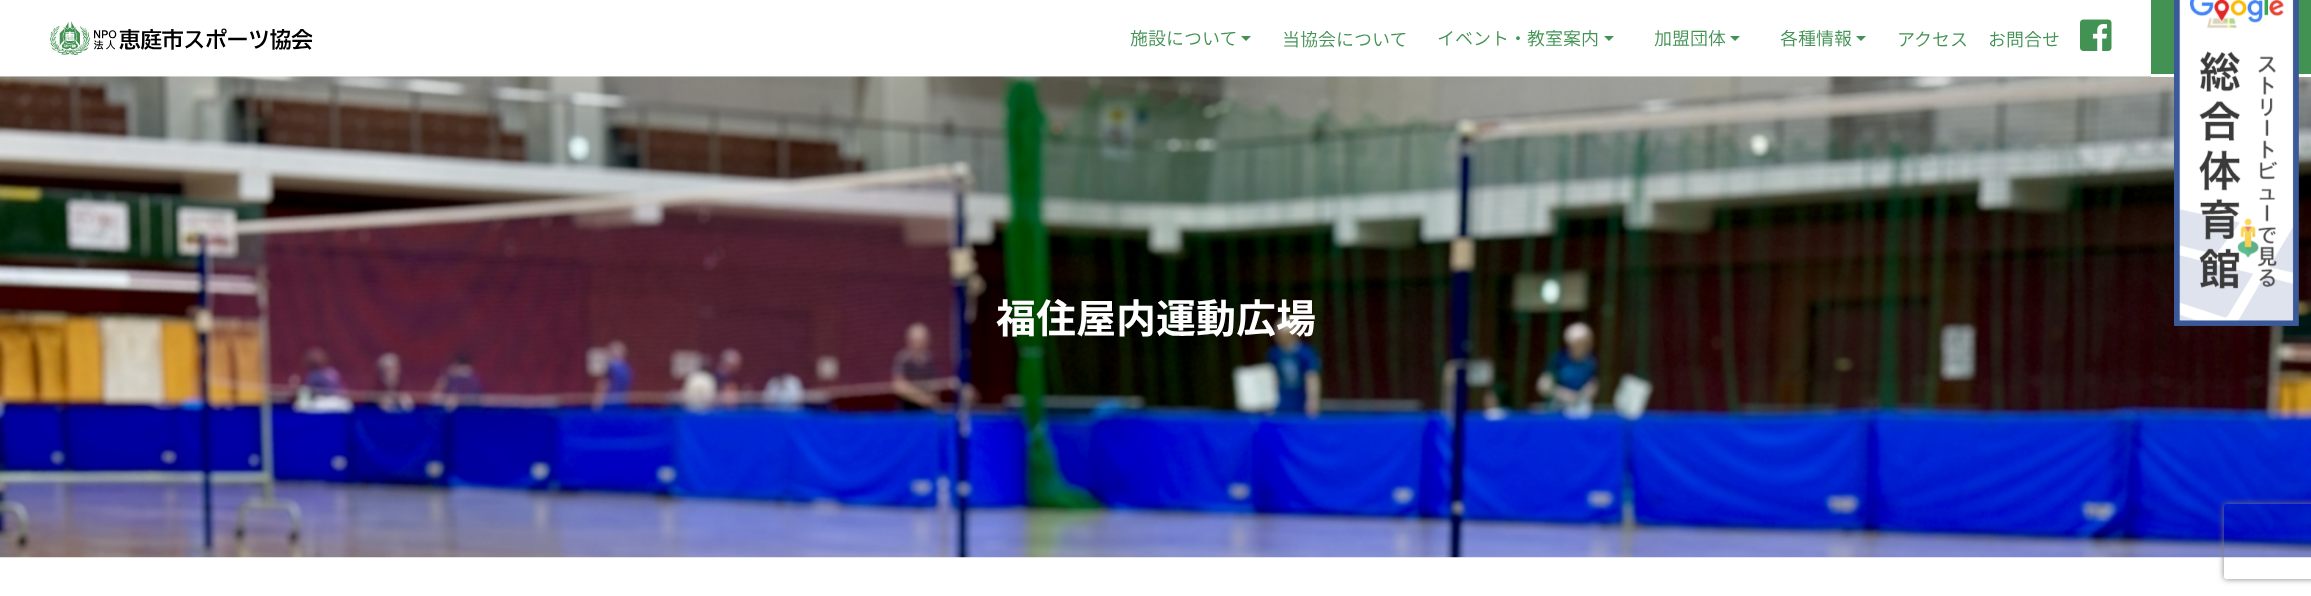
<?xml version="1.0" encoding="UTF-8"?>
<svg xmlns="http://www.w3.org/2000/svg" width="2311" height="596">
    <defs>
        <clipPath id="clip1"><path d="M 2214 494 H 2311 V 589 H 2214 Z M 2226.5 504 H 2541.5 C 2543 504 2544 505 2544 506.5 V 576.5 C 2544 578 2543 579 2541.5 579 H 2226.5 C 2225 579 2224 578 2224 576.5 V 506.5 C 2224 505 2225 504 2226.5 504 Z" clip-rule="evenodd"/></clipPath>
        <filter id="blur1" x="-50%" y="-200%" width="200%" height="500%"><feGaussianBlur stdDeviation="3"/></filter>
    </defs>
    <rect width="100%" height="100%" fill="#FFFFFF"/>
    <image x="50" y="21" width="263" height="34" href="img_01.png"/>
    <text x="1130" y="45" font-family="Noto Sans JP" font-size="18" font-weight="300" fill="#429253">施設について</text>
    <path d="M 1241 36 H 1251 L 1246 41 Z" fill="#429253"/>
    <text x="1282" y="46" font-family="Noto Sans JP" font-size="18" font-weight="300" fill="#429253">当協会について</text>
    <text x="1437" y="45" font-family="Noto Sans JP" font-size="18" font-weight="300" fill="#429253">イベント・教室案内</text>
    <path d="M 1604 36 H 1614 L 1609 41 Z" fill="#429253"/>
    <text x="1654" y="45" font-family="Noto Sans JP" font-size="18" font-weight="300" fill="#429253">加盟団体</text>
    <path d="M 1730 36 H 1740 L 1735 41 Z" fill="#429253"/>
    <text x="1780" y="45" font-family="Noto Sans JP" font-size="18" font-weight="300" fill="#429253">各種情報</text>
    <path d="M 1856 36 H 1866 L 1861 41 Z" fill="#429253"/>
    <text x="1897" y="46" font-family="Noto Sans JP" font-size="18" font-weight="300" fill="#429253">アクセス</text>
    <text x="1988" y="46" font-family="Noto Sans JP" font-size="18" font-weight="300" fill="#429253">お問合せ</text>
    <image x="2080" y="19" width="32" height="32" href="img_02.png"/>
    <rect x="2151" y="0" width="160" height="74" fill="#429253"/>
    <image x="0" y="76" width="2311" height="482" href="img_04.png"/>
    <rect x="2151" y="76" width="160" height="1" fill="#FFFFFF"/>
    <image x="2174" y="0" width="125" height="326" href="img_03.png"/>
    <text x="996" y="333" font-family="Noto Sans JP" font-size="40" font-weight="700" fill="#FFFFFF">福住屋内運動広場</text>
    <g clip-path="url(#clip1)">
        <rect x="2224" y="504" width="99" height="75" rx="2.5" fill="#808080" filter="url(#blur1)"/>
    </g>
</svg>
